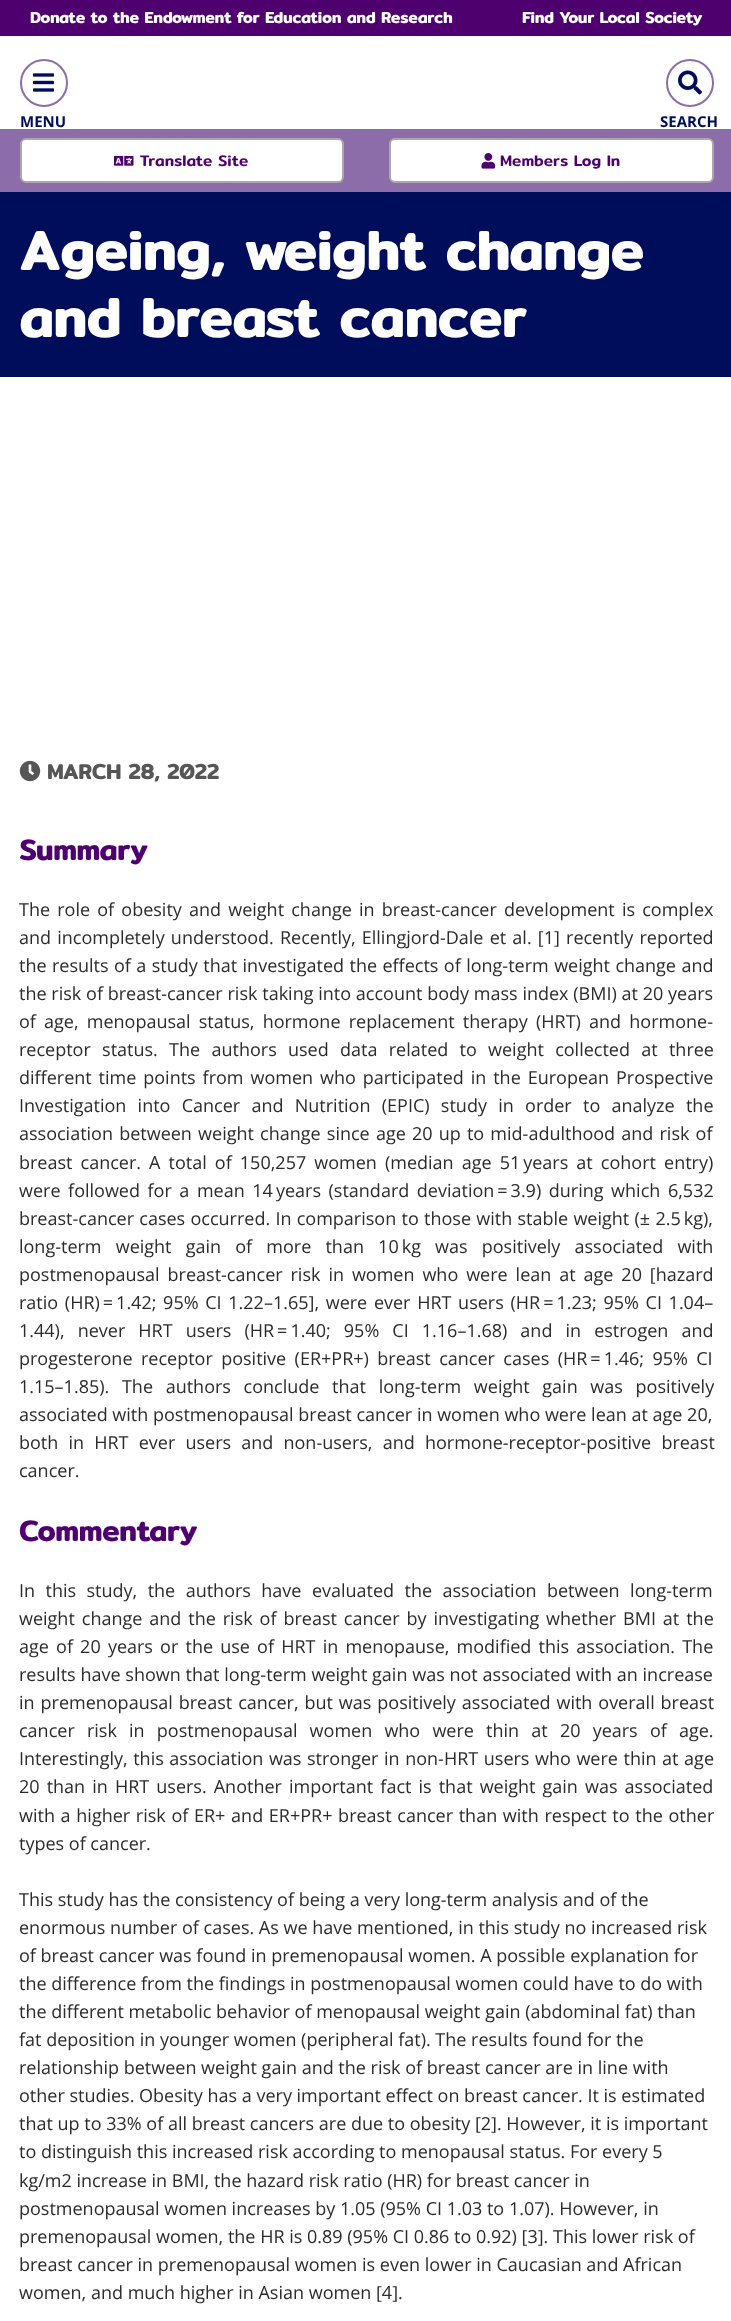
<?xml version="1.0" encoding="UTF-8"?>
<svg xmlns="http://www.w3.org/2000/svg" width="731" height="2321">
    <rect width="100%" height="100%" fill="#FFFFFF"/>
    <rect x="0" y="0" width="731" height="36" fill="#4F006F"/>
    <text x="30" y="23" font-family="Mitr" font-size="15.6" font-weight="700" fill="#FFFFFF">Donate to the Endowment for Education and Research</text>
    <text x="522" y="23" font-family="Mitr" font-size="15.6" font-weight="700" fill="#FFFFFF">Find Your Local Society</text>
    <circle cx="44" cy="83" r="23" fill="none" stroke="#8D6DA9" stroke-width="2"/>
    <image x="33" y="73" width="21" height="19" href="img_01.png"/>
    <text x="20" y="127" font-family="Open Sans" font-size="15" font-weight="700" fill="#000D5B">MENU</text>
    <circle cx="690" cy="83" r="23" fill="none" stroke="#8D6DA9" stroke-width="2"/>
    <image x="678" y="70" width="24" height="25" href="img_02.png"/>
    <text x="660" y="127" font-family="Open Sans" font-size="15" font-weight="700" fill="#000D5B">SEARCH</text>
    <rect x="0" y="129" width="731" height="63" fill="#8D6DA9"/>
    <rect x="21" y="139" width="322" height="43" rx="5" fill="#FFFFFF" stroke="#A9A9A9" stroke-width="2"/>
    <image x="114" y="155" width="20" height="11" href="img_03.png"/>
    <text x="140" y="166" font-family="Mitr" font-size="15.6" font-weight="500" fill="#4F006F">Translate Site</text>
    <rect x="390" y="139" width="323" height="43" rx="5" fill="#FFFFFF" stroke="#A9A9A9" stroke-width="2"/>
    <image x="481" y="153" width="15" height="16" href="img_04.png"/>
    <text x="500" y="166" font-family="Mitr" font-size="15.6" font-weight="500" fill="#4F006F">Members Log In</text>
    <rect x="0" y="192" width="731" height="185" fill="#000D5B"/>
    <text font-family="Mitr" font-size="55.25" font-weight="700" fill="#FFFFFF">
        <tspan x="19" y="270">Ageing, weight change</tspan>
        <tspan x="19" y="337">and breast cancer</tspan>
    </text>
    <image x="19" y="760" width="22" height="22" href="img_05.png"/>
    <text x="47" y="779" font-family="Mitr" font-size="21" font-weight="700" fill="#565656">MARCH 28, 2022</text>
    <text x="19" y="860" font-family="Mitr" font-size="28.75" font-weight="700" fill="#4F006F">Summary</text>
    <text font-family="Open Sans" font-size="18" fill="#2B2B2B">
        <tspan x="19" y="916" word-spacing="2.5">The role of obesity and weight change in breast-cancer development is complex</tspan>
        <tspan x="19" y="944" word-spacing="1.5">and incompletely understood. Recently, Ellingjord-Dale et al. [1] recently reported</tspan>
        <tspan x="19" y="972" word-spacing="0.75">the results of a study that investigated the effects of long-term weight change and</tspan>
        <tspan x="19" y="1000" word-spacing="0.1">the risk of breast-cancer risk taking into account body mass index (BMI) at 20 years</tspan>
        <tspan x="19" y="1028" word-spacing="3.5">of age, menopausal status, hormone replacement therapy (HRT) and hormone-</tspan>
        <tspan x="19" y="1056" word-spacing="6.6">receptor status. The authors used data related to weight collected at three</tspan>
        <tspan x="19" y="1084" word-spacing="2.25">different time points from women who participated in the European Prospective</tspan>
        <tspan x="19" y="1112" word-spacing="6.6">Investigation into Cancer and Nutrition (EPIC) study in order to analyze the</tspan>
        <tspan x="19" y="1140" word-spacing="1.5">association between weight change since age 20 up to mid-adulthood and risk of</tspan>
        <tspan x="19" y="1169" word-spacing="3.4">breast cancer. A total of 150,257 women (median age 51 years at cohort entry)</tspan>
        <tspan x="19" y="1197" word-spacing="2.9">were followed for a mean 14 years (standard deviation = 3.9) during which 6,532</tspan>
        <tspan x="19" y="1225" word-spacing="0.6">breast-cancer cases occurred. In comparison to those with stable weight (± 2.5 kg),</tspan>
        <tspan x="19" y="1253" word-spacing="9.5">long-term weight gain of more than 10 kg was positively associated with</tspan>
        <tspan x="19" y="1281" word-spacing="3.25">postmenopausal breast-cancer risk in women who were lean at age 20 [hazard</tspan>
        <tspan x="19" y="1309" word-spacing="2">ratio (HR) = 1.42; 95% CI 1.22–1.65], were ever HRT users (HR = 1.23; 95% CI 1.04–</tspan>
        <tspan x="19" y="1337" word-spacing="8.4">1.44), never HRT users (HR = 1.40; 95% CI 1.16–1.68) and in estrogen and</tspan>
        <tspan x="19" y="1365" word-spacing="3.75">progesterone receptor positive (ER+PR+) breast cancer cases (HR = 1.46; 95% CI</tspan>
        <tspan x="19" y="1393" word-spacing="8">1.15–1.85). The authors conclude that long-term weight gain was positively</tspan>
        <tspan x="19" y="1421">associated with postmenopausal breast cancer in women who were lean at age 20,</tspan>
        <tspan x="19" y="1449" word-spacing="5.5">both in HRT ever users and non-users, and hormone-receptor-positive breast</tspan>
        <tspan x="19" y="1477">cancer.</tspan>
    </text>
    <text x="19" y="1541" font-family="Mitr" font-size="28.75" font-weight="700" fill="#4F006F">Commentary</text>
    <text font-family="Open Sans" font-size="18" fill="#2B2B2B">
        <tspan x="19" y="1597" word-spacing="5.75">In this study, the authors have evaluated the association between long-term</tspan>
        <tspan x="19" y="1625" word-spacing="2.25">weight change and the risk of breast cancer by investigating whether BMI at the</tspan>
        <tspan x="19" y="1653" word-spacing="2.5">age of 20 years or the use of HRT in menopause, modified this association. The</tspan>
        <tspan x="19" y="1681" word-spacing="0.1">results have shown that long-term weight gain was not associated with an increase</tspan>
        <tspan x="19" y="1709" word-spacing="1.25">in premenopausal breast cancer, but was positively associated with overall breast</tspan>
        <tspan x="19" y="1737" word-spacing="7.5">cancer risk in postmenopausal women who were thin at 20 years of age.</tspan>
        <tspan x="19" y="1765" word-spacing="0.9">Interestingly, this association was stronger in non-HRT users who were thin at age</tspan>
        <tspan x="19" y="1793" word-spacing="2.4">20 than in HRT users. Another important fact is that weight gain was associated</tspan>
        <tspan x="19" y="1822" word-spacing="1">with a higher risk of ER+ and ER+PR+ breast cancer than with respect to the other</tspan>
        <tspan x="19" y="1850">types of cancer.</tspan>
    </text>
    <text font-family="Open Sans" font-size="18" fill="#2B2B2B">
        <tspan x="19" y="1906">This study has the consistency of being a very long-term analysis and of the</tspan>
        <tspan x="19" y="1934">enormous number of cases. As we have mentioned, in this study no increased risk</tspan>
        <tspan x="19" y="1962">of breast cancer was found in premenopausal women. A possible explanation for</tspan>
        <tspan x="19" y="1990">the difference from the findings in postmenopausal women could have to do with</tspan>
        <tspan x="19" y="2018">the different metabolic behavior of menopausal weight gain (abdominal fat) than</tspan>
        <tspan x="19" y="2046">fat deposition in younger women (peripheral fat). The results found for the</tspan>
        <tspan x="19" y="2074">relationship between weight gain and the risk of breast cancer are in line with</tspan>
        <tspan x="19" y="2102">other studies. Obesity has a very important effect on breast cancer. It is estimated</tspan>
        <tspan x="19" y="2130">that up to 33% of all breast cancers are due to obesity [2]. However, it is important</tspan>
        <tspan x="19" y="2158">to distinguish this increased risk according to menopausal status. For every 5</tspan>
        <tspan x="19" y="2187">kg/m2 increase in BMI, the hazard risk ratio (HR) for breast cancer in</tspan>
        <tspan x="19" y="2215">postmenopausal women increases by 1.05 (95% CI 1.03 to 1.07). However, in</tspan>
        <tspan x="19" y="2243">premenopausal women, the HR is 0.89 (95% CI 0.86 to 0.92) [3]. This lower risk of</tspan>
        <tspan x="19" y="2271">breast cancer in premenopausal women is even lower in Caucasian and African</tspan>
        <tspan x="19" y="2299">women, and much higher in Asian women [4].</tspan>
    </text>
</svg>
